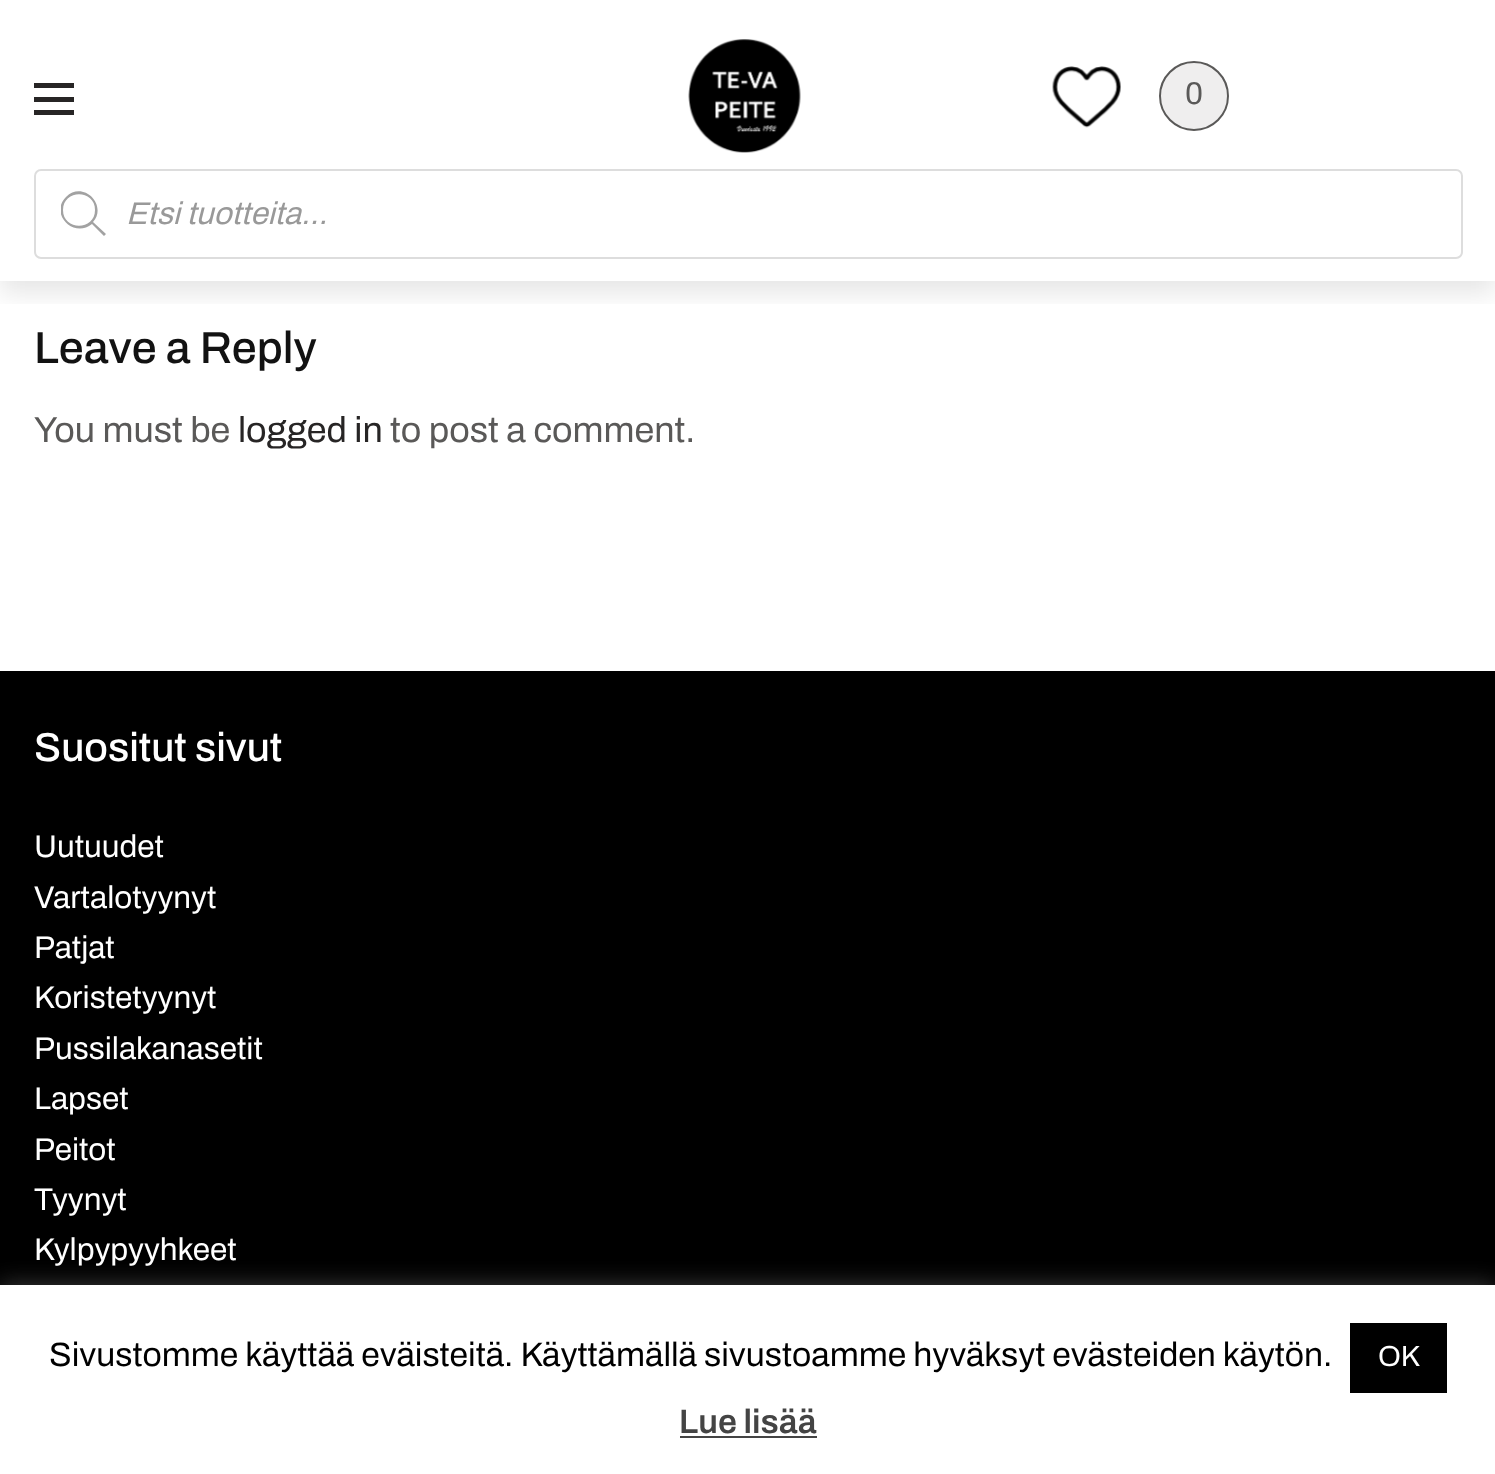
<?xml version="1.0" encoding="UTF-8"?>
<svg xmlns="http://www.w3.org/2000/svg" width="1495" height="1474">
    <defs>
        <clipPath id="clip1"><rect x="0" y="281" width="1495" height="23"/></clipPath>
        <filter id="blur1" x="-50%" y="-200%" width="200%" height="500%"><feGaussianBlur stdDeviation="13.5"/></filter>
        <clipPath id="clip2"><rect x="61" y="191" width="45" height="45"/></clipPath>
        <filter id="blur2" x="-50%" y="-200%" width="200%" height="500%"><feGaussianBlur stdDeviation="11"/></filter>
    </defs>
    <rect width="100%" height="100%" fill="#FFFFFF"/>
    <g clip-path="url(#clip1)">
        <rect x="0" y="11" width="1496" height="282" fill="#000000" fill-opacity="0.1" filter="url(#blur1)"/>
    </g>
    <rect x="34" y="83" width="40" height="5" fill="#272525"/>
    <rect x="34" y="97" width="40" height="5" fill="#272525"/>
    <rect x="34" y="110" width="40" height="5" fill="#272525"/>
    <image x="688" y="39" width="113" height="114" href="img_01.png"/>
    <image x="1052" y="66" width="69" height="62" href="img_02.png"/>
    <circle cx="1194" cy="96" r="34" fill="#EFEEEE" stroke="#5A5958" stroke-width="2"/>
    <text x="1185" y="104" font-family="Archivo" font-size="31.5" fill="#5A5958">0</text>
    <rect x="35" y="170" width="1427" height="88" rx="6" fill="none" stroke="#DDDDDD" stroke-width="2"/>
    <g clip-path="url(#clip2)">
        <path d="M 106 234 L 93 222 C 108 205 83 180 66 197 C 49 214 74 239 92 224 L 104 236 Z M 63 210 C 63 189 95 189 95 210 C 95 231 63 231 63 210 Z" fill="#A2A2A2"/>
    </g>
    <text x="126" y="224" font-family="Archivo" font-size="31.5" font-style="italic" fill="#999999">Etsi tuotteita...</text>
    <text x="34" y="363" font-family="Archivo" font-size="45" font-weight="500" fill="#121212">Leave a Reply</text>
    <text x="34" y="442" font-family="Archivo" font-size="36" fill="#5A5958">You must be</text>
    <text x="238" y="442" font-family="Archivo" font-size="36" fill="#272525">logged in</text>
    <text x="390" y="442" font-family="Archivo" font-size="36" fill="#5A5958">to post a comment.</text>
    <rect x="0" y="671" width="1495" height="614" fill="#000000"/>
    <text x="34" y="761" font-family="Archivo" font-size="40.5" font-weight="500" fill="#FFFFFF">Suositut sivut</text>
    <text font-family="Archivo" font-size="31.5" fill="#FFFFFF">
        <tspan x="34" y="857">Uutuudet</tspan>
        <tspan x="34" y="908">Vartalotyynyt</tspan>
        <tspan x="34" y="958">Patjat</tspan>
        <tspan x="34" y="1008">Koristetyynyt</tspan>
        <tspan x="34" y="1059">Pussilakanasetit</tspan>
        <tspan x="34" y="1109">Lapset</tspan>
        <tspan x="34" y="1160">Peitot</tspan>
        <tspan x="34" y="1210">Tyynyt</tspan>
        <tspan x="34" y="1260">Kylpypyyhkeet</tspan>
    </text>
    <rect x="0" y="1283" width="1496" height="191" fill="#ACABAB" fill-opacity="0.3" filter="url(#blur2)"/>
    <rect x="0" y="1285" width="1495" height="189" fill="#FFFFFF"/>
    <text x="49" y="1366" font-family="Archivo" font-size="33.75" fill="#000000">Sivustomme käyttää eväisteitä. Käyttämällä sivustoamme hyväksyt evästeiden käytön.</text>
    <rect x="1350" y="1323" width="97" height="70" fill="#000000"/>
    <text x="1378" y="1366" font-family="Archivo" font-size="29" fill="#FFFFFF">OK</text>
    <text x="679" y="1433" font-family="Archivo" font-size="33.75" font-weight="600" fill="#444444">Lue lisää</text>
    <rect x="680" y="1436" width="137" height="2" fill="#444444"/>
</svg>
